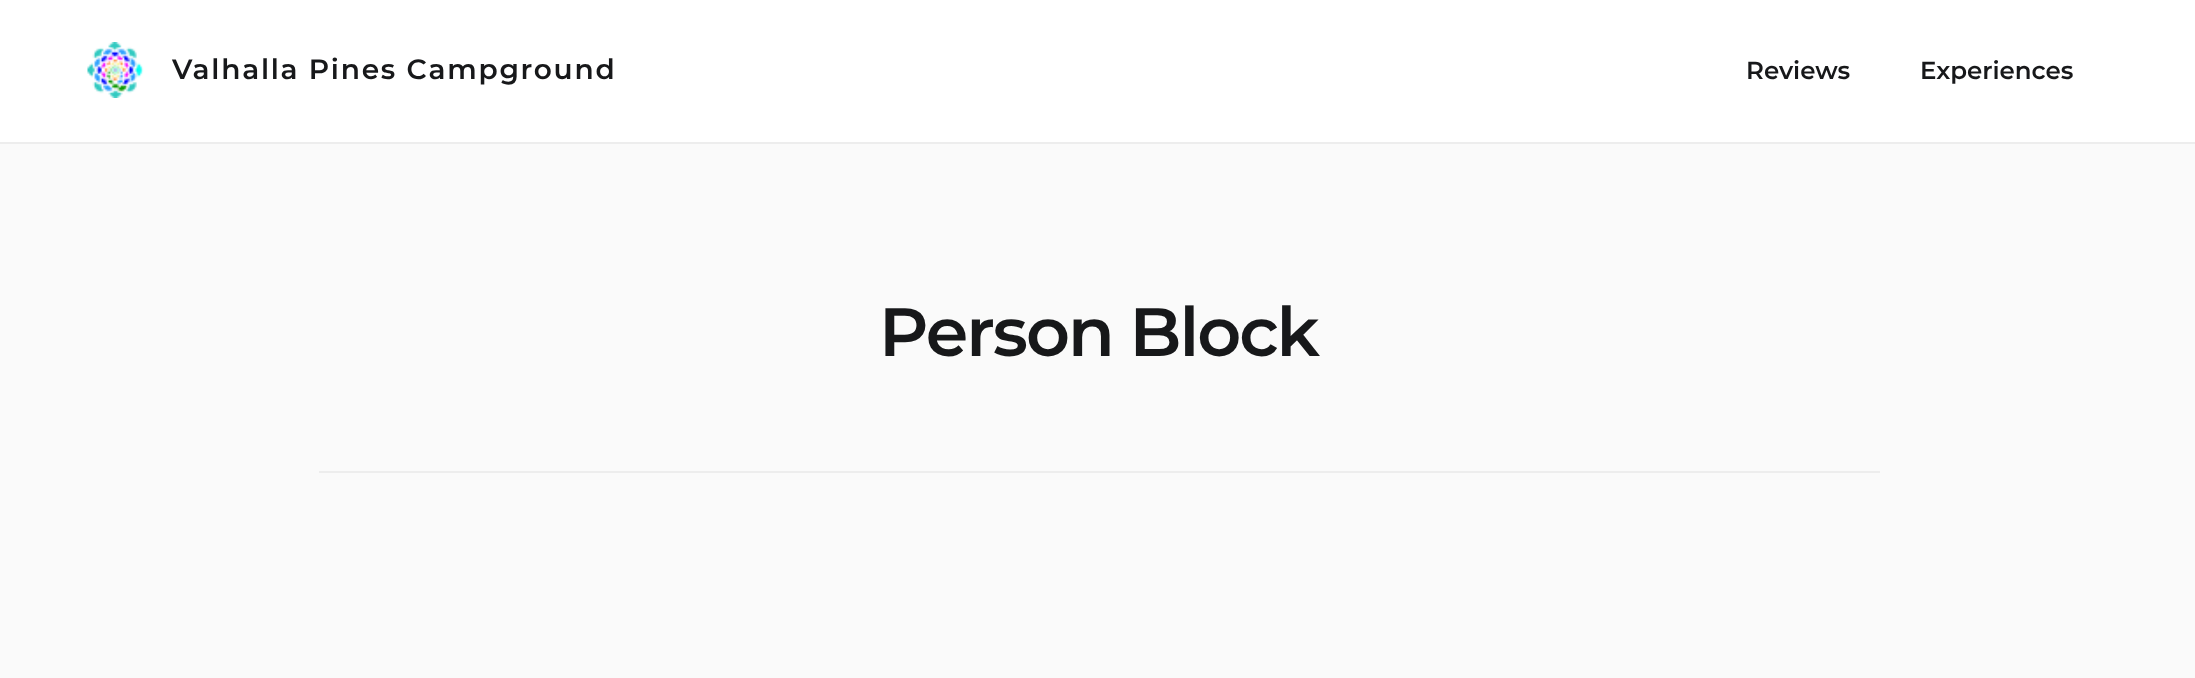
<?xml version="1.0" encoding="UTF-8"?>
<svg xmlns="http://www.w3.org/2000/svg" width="2195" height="678">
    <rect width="100%" height="100%" fill="#FAFAFA"/>
    <rect x="0" y="142" width="2195" height="2" fill="#EDEDED"/>
    <rect x="0" y="0" width="2195" height="142" fill="#FFFFFF"/>
    <image x="87" y="42" width="57" height="56" href="img_01.png"/>
    <text x="172" y="79" font-family="Montserrat" font-size="28" font-weight="600" letter-spacing="1.75" fill="#17181A">Valhalla Pines Campground</text>
    <text x="1746" y="79" font-family="Montserrat" font-size="24.5" font-weight="600" fill="#17181A">Reviews</text>
    <text x="1920" y="79" font-family="Montserrat" font-size="24.5" font-weight="600" fill="#17181A">Experiences</text>
    <rect x="319" y="471" width="1561" height="2" fill="#EDEDED"/>
    <text x="879" y="356" font-family="Montserrat" font-size="68.25" font-weight="600" letter-spacing="-2" fill="#17181A">Person Block</text>
</svg>
